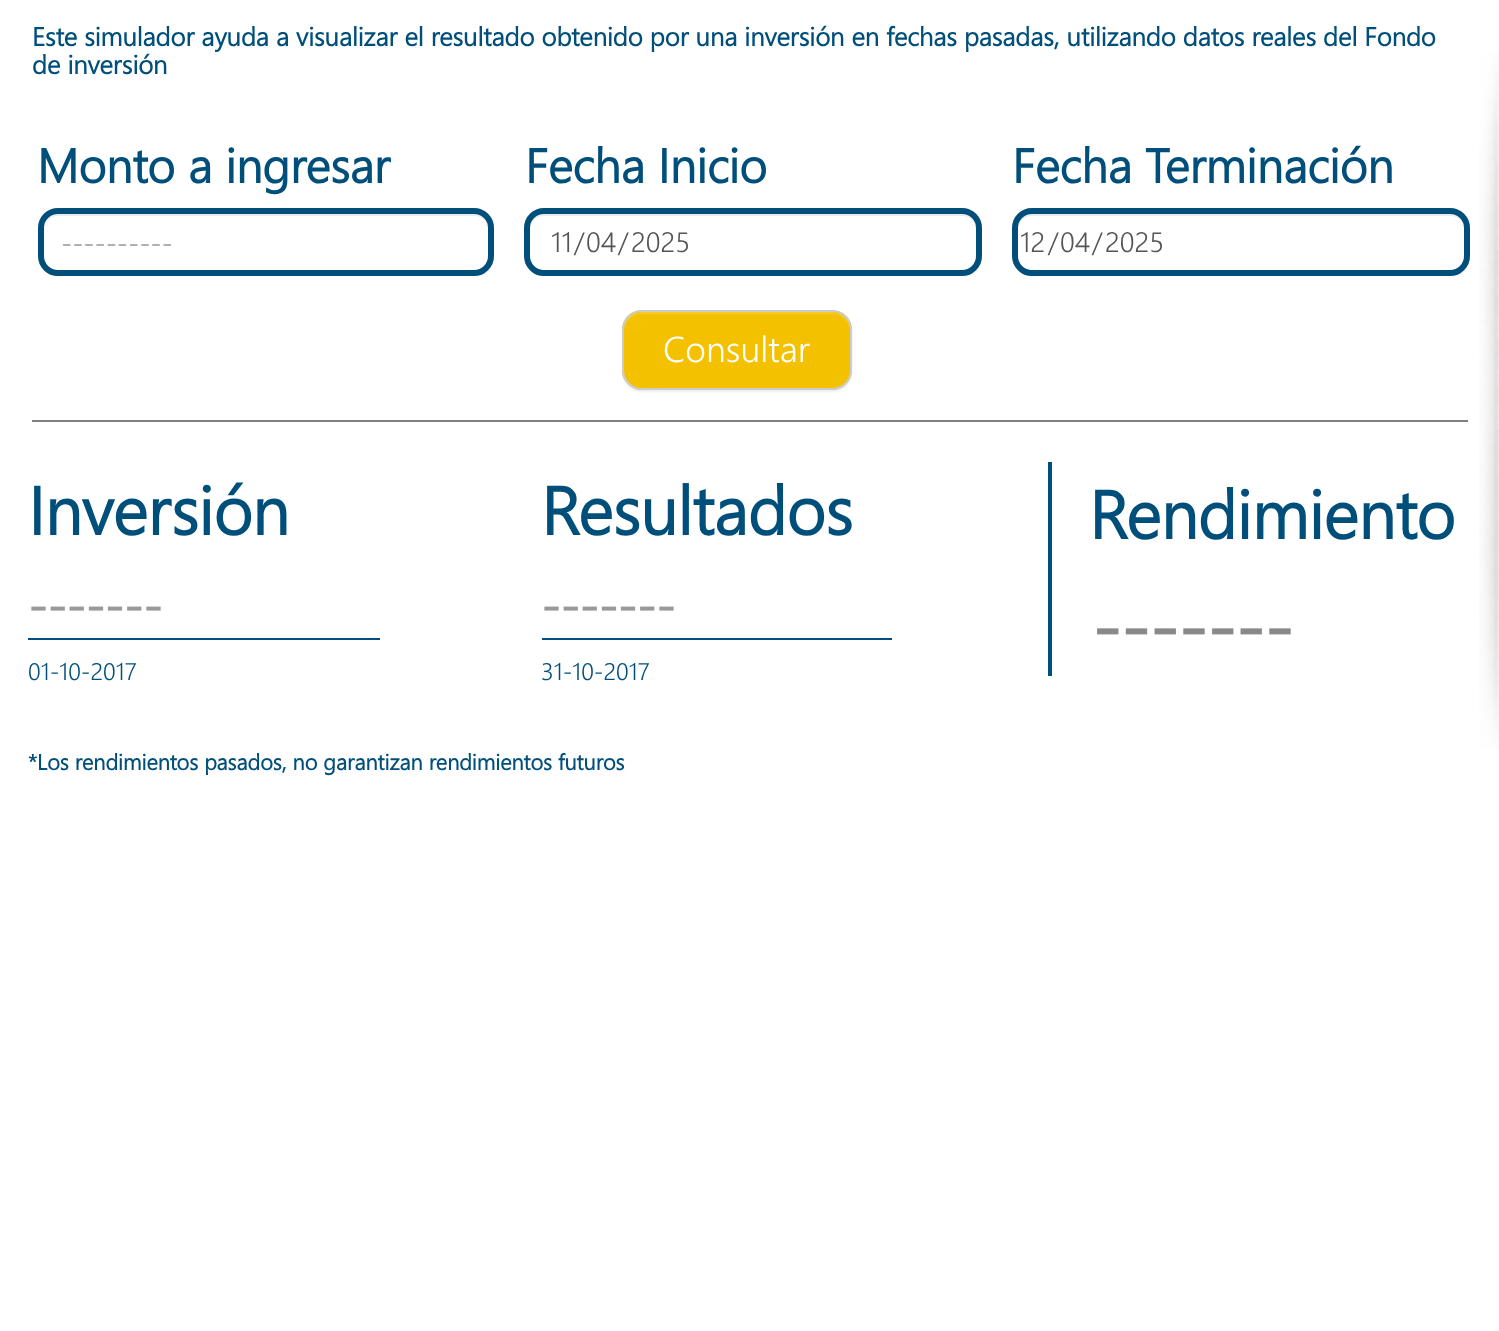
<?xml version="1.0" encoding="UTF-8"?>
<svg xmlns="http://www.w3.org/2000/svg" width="1499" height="1331">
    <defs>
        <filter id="blur1" x="-50%" y="-200%" width="200%" height="500%"><feGaussianBlur stdDeviation="1"/></filter>
    </defs>
    <rect width="100%" height="100%" fill="#FFFFFF"/>
    <image x="1479" y="53" width="20" height="696" href="img_01.png"/>
    <text font-family="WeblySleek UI" font-size="26" font-weight="700" fill="#004F7B">
        <tspan x="32" y="46">Este simulador ayuda a visualizar el resultado obtenido por una inversión en fechas pasadas, utilizando datos reales del Fondo</tspan>
        <tspan x="32" y="74">de inversión</tspan>
    </text>
    <text x="37" y="183" font-family="WeblySleek UI" font-size="48" font-weight="700" fill="#004F7B">Monto a ingresar</text>
    <path d="M 58 216 H 474 C 482 216 488 222 488 230 C 488 223 485 216 477 214 H 58 C 49 214 44 222 44 230 C 44 222 50 216 58 216 Z" fill="#ECECEC"/>
    <rect x="41" y="211" width="450" height="62" rx="17" fill="none" stroke="#004F7B" stroke-width="6"/>
    <text x="61" y="253" font-family="WeblySleek UI" font-size="28" font-weight="300" fill="#999999">----------</text>
    <text x="525" y="183" font-family="WeblySleek UI" font-size="48" font-weight="700" fill="#004F7B">Fecha Inicio</text>
    <path d="M 544 216 H 962 C 970 216 976 222 976 230 V 228 C 976 220 970 214 962 214 H 544 C 536 214 530 220 530 228 V 230 C 530 222 536 216 544 216 Z" fill="#ECECEC"/>
    <rect x="527" y="211" width="452" height="62" rx="17" fill="none" stroke="#004F7B" stroke-width="6"/>
    <text x="551" y="252" font-family="WeblySleek UI" font-size="28" font-weight="300" fill="#555555">11</text>
    <text x="574" y="252" font-family="WeblySleek UI" font-size="28" font-weight="300" fill="#555555">/</text>
    <text x="586" y="252" font-family="WeblySleek UI" font-size="28" font-weight="300" fill="#555555">04</text>
    <text x="618" y="252" font-family="WeblySleek UI" font-size="28" font-weight="300" fill="#555555">/</text>
    <text x="631" y="252" font-family="WeblySleek UI" font-size="28" font-weight="300" fill="#555555">2025</text>
    <text x="1012" y="183" font-family="WeblySleek UI" font-size="48" font-weight="700" fill="#004F7B">Fecha Terminación</text>
    <path d="M 1032 216 H 1450 C 1458 216 1464 222 1464 230 V 228 C 1464 220 1458 214 1450 214 H 1032 C 1024 214 1018 220 1018 228 V 230 C 1018 222 1024 216 1032 216 Z" fill="#ECECEC"/>
    <rect x="1015" y="211" width="452" height="62" rx="17" fill="none" stroke="#004F7B" stroke-width="6"/>
    <text x="1020" y="252" font-family="WeblySleek UI" font-size="28" font-weight="300" fill="#555555">12</text>
    <text x="1048" y="252" font-family="WeblySleek UI" font-size="28" font-weight="300" fill="#555555">/</text>
    <text x="1060" y="252" font-family="WeblySleek UI" font-size="28" font-weight="300" fill="#555555">04</text>
    <text x="1092" y="252" font-family="WeblySleek UI" font-size="28" font-weight="300" fill="#555555">/</text>
    <text x="1105" y="252" font-family="WeblySleek UI" font-size="28" font-weight="300" fill="#555555">2025</text>
    <rect x="622" y="312" width="230" height="80" rx="20" fill="#000000" fill-opacity="0.07" filter="url(#blur1)"/>
    <rect x="622" y="310" width="230" height="80" rx="20" fill="#F4C101"/>
    <path d="M 642 314 H 832 C 842 314 850 322 850 332 C 850 305 818 312 800 312 H 674 C 656 312 624 305 624 332 C 624 322 632 314 642 314 Z" fill="#F6CA27"/>
    <rect x="623" y="311" width="228" height="78" rx="19" fill="none" stroke="#CCCCCC" stroke-width="2"/>
    <text x="663" y="362" font-family="WeblySleek UI" font-size="36" font-weight="300" fill="#FFFFFF">Consultar</text>
    <rect x="32" y="420" width="1436" height="2" fill="#808080"/>
    <text x="28" y="535" font-family="WeblySleek UI" font-size="67.5" font-weight="700" fill="#004F7B">Inversión</text>
    <text x="28" y="623" font-family="WeblySleek UI" font-size="48" font-weight="700" fill="#999999">-------</text>
    <rect x="28" y="638" width="352" height="2" fill="#004E7D"/>
    <text x="28" y="680" font-family="WeblySleek UI" font-size="24" font-weight="300" fill="#004F7B">01-10-2017</text>
    <text x="541" y="535" font-family="WeblySleek UI" font-size="67.5" font-weight="700" fill="#004F7B">Resultados</text>
    <text x="541" y="623" font-family="WeblySleek UI" font-size="48" font-weight="700" fill="#999999">-------</text>
    <rect x="542" y="638" width="350" height="2" fill="#004E7D"/>
    <text x="541" y="680" font-family="WeblySleek UI" font-size="24" font-weight="300" fill="#004F7B">31-10-2017</text>
    <rect x="1048" y="462" width="4" height="214" fill="#004E7D"/>
    <text x="1089" y="539" font-family="WeblySleek UI" font-size="67.5" font-weight="700" fill="#004F7B">Rendimiento</text>
    <text x="1092" y="653" font-family="WeblySleek UI" font-size="72" font-weight="700" fill="#898989">-------</text>
    <text x="28" y="770" font-family="WeblySleek UI" font-size="22" font-weight="700" fill="#004F7B">*Los rendimientos pasados, no garantizan rendimientos futuros</text>
</svg>
